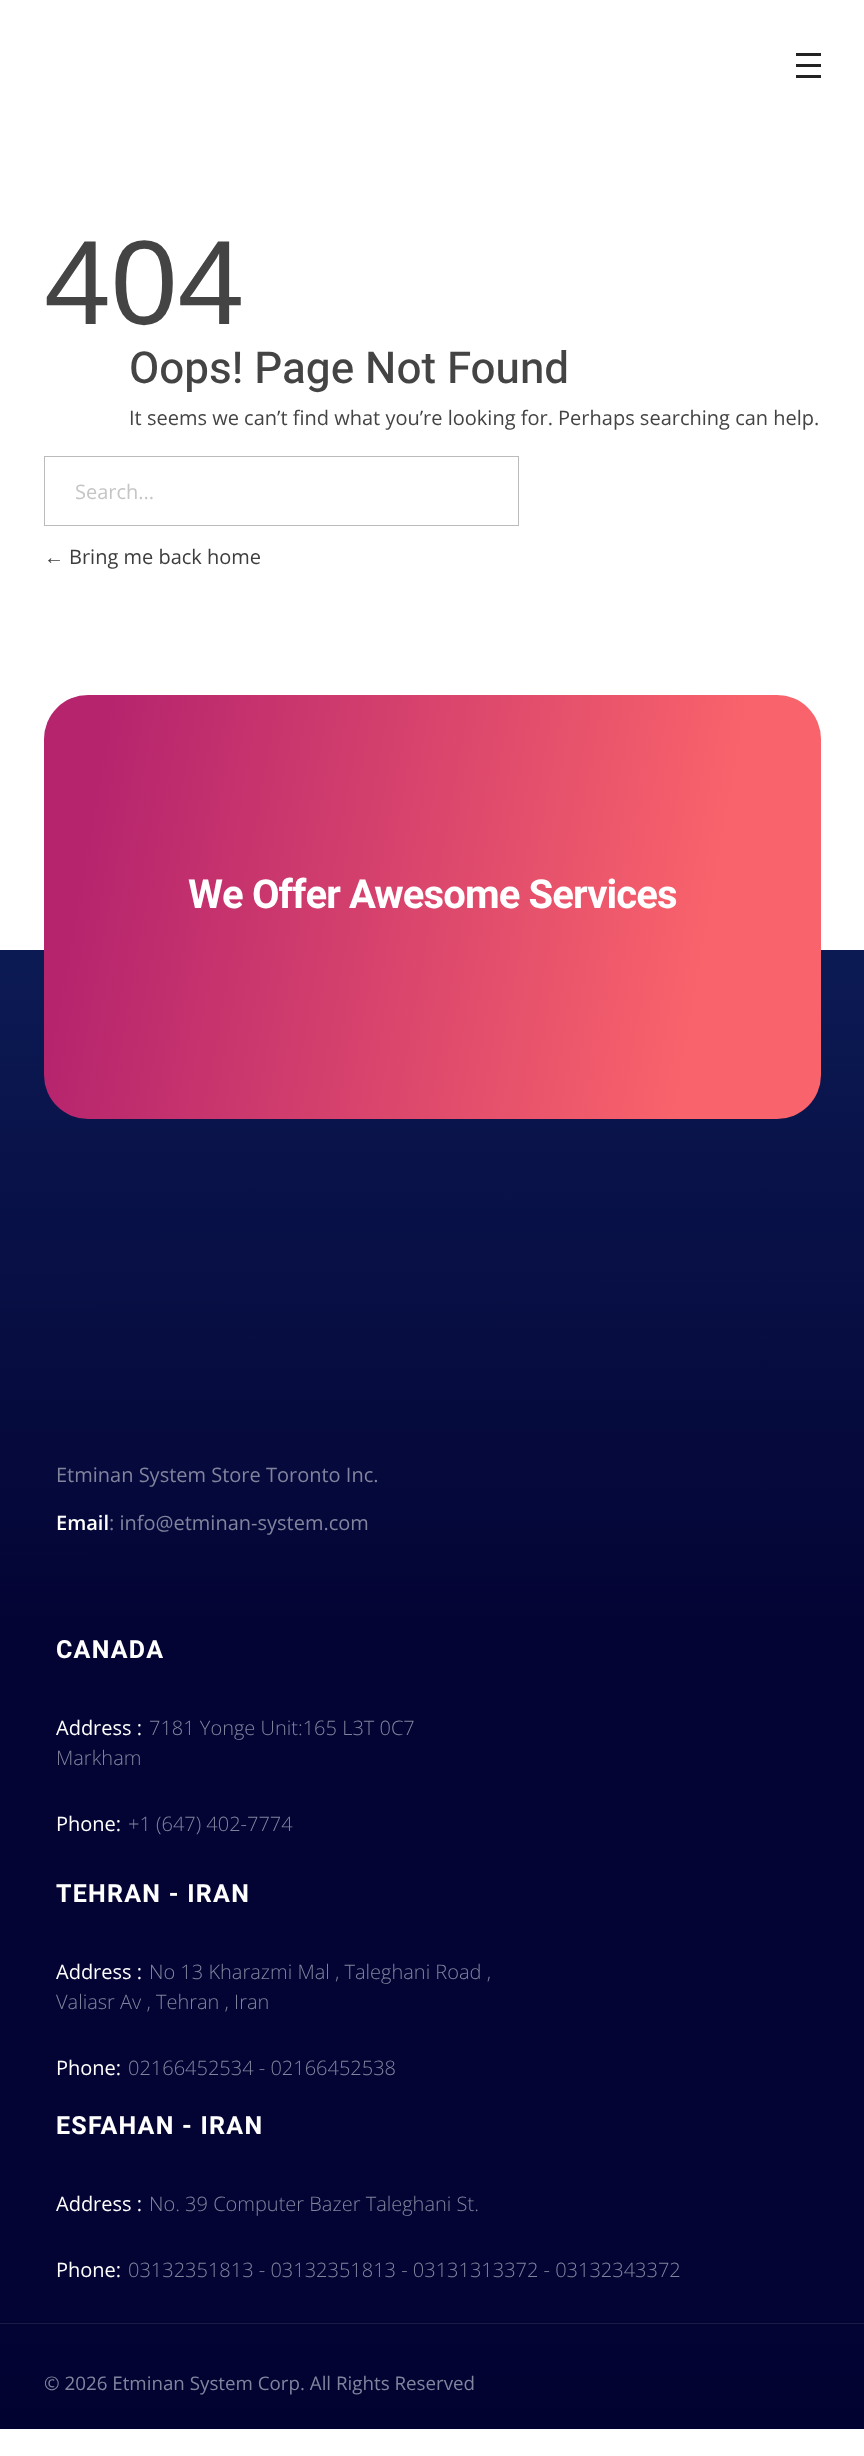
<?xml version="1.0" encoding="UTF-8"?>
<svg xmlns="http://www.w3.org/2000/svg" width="864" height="2456">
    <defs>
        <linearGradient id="g1" gradientUnits="userSpaceOnUse" x1="432" y1="950" x2="433" y2="2323"><stop offset="0" stop-color="#0C1A54"/><stop offset="0.49" stop-color="#030434"/></linearGradient>
        <linearGradient id="g2" gradientUnits="userSpaceOnUse" x1="19" y1="834" x2="846" y2="980"><stop offset="0.08" stop-color="#B6246E"/><stop offset="0.83" stop-color="#F9636B"/></linearGradient>
        <linearGradient id="g3" gradientUnits="userSpaceOnUse" x1="433" y1="2324" x2="433" y2="2429"><stop offset="0" stop-color="#030434"/><stop offset="1" stop-color="#020230"/></linearGradient>
    </defs>
    <rect width="100%" height="100%" fill="#FFFFFF"/>
    <rect x="796" y="53" width="25" height="3" fill="#222222"/>
    <rect x="796" y="64" width="25" height="3" fill="#222222"/>
    <rect x="796" y="75" width="25" height="3" fill="#222222"/>
    <text x="44" y="324" font-family="Liberation Sans" font-size="120" fill="#444444">404</text>
    <text x="129" y="383" font-family="Heebo" font-size="44" font-weight="500" fill="#444444">Oops! Page Not Found</text>
    <text x="129" y="425" font-family="Open Sans" font-size="20" fill="#444444">It seems we can’t find what you’re looking for. Perhaps searching can help.</text>
    <rect x="44.5" y="456.5" width="474" height="69" fill="none" stroke="#BBBBBB"/>
    <text x="75" y="499" font-family="Open Sans" font-size="20" fill="#C5C5C5">Search...</text>
    <text x="44" y="564" font-family="Liberation Sans" font-size="20" fill="#3D3D3D">←</text>
    <text x="69" y="564" font-family="Open Sans" font-size="20" fill="#3D3D3D">Bring me back home</text>
    <rect x="0" y="950" width="864" height="1373" fill="url(#g1)"/>
    <rect x="44" y="695" width="777" height="424" rx="44" fill="url(#g2)"/>
    <text x="188" y="908" font-family="Heebo" font-size="40" font-weight="700" letter-spacing="-0.9" fill="#FFFFFF">We Offer Awesome Services</text>
    <text x="56" y="1482" font-family="Open Sans" font-size="20" fill="#82849D">Etminan System Store Toronto Inc.</text>
    <text x="56" y="1530" font-family="Open Sans" font-size="20" font-weight="600" fill="#FFFFFF">Email</text>
    <text x="109" y="1530" font-family="Open Sans" font-size="20" fill="#82849D">: info@etminan-system.com</text>
    <text x="56" y="1658" font-family="Heebo" font-size="25" font-weight="700" letter-spacing="1.25" fill="#FFFFFF">CANADA</text>
    <text x="56" y="1735" font-family="Open Sans" font-size="20" fill="#FFFFFF">Address :</text>
    <text x="149" y="1735" font-family="Open Sans" font-size="20" font-weight="300" fill="#82849D">7181 Yonge Unit:165 L3T 0C7</text>
    <text x="56" y="1765" font-family="Open Sans" font-size="20" font-weight="300" fill="#82849D">Markham</text>
    <text x="56" y="1831" font-family="Open Sans" font-size="20" fill="#FFFFFF">Phone:</text>
    <text x="128" y="1831" font-family="Open Sans" font-size="20" font-weight="300" fill="#82849D">+1 (647) 402-7774</text>
    <text x="56" y="1902" font-family="Heebo" font-size="25" font-weight="700" letter-spacing="1.25" fill="#FFFFFF">TEHRAN - IRAN</text>
    <text x="56" y="1979" font-family="Open Sans" font-size="20" fill="#FFFFFF">Address :</text>
    <text x="149" y="1979" font-family="Open Sans" font-size="20" font-weight="300" fill="#82849D">No 13 Kharazmi Mal , Taleghani Road ,</text>
    <text x="56" y="2009" font-family="Open Sans" font-size="20" font-weight="300" fill="#82849D">Valiasr Av , Tehran , Iran</text>
    <text x="56" y="2075" font-family="Open Sans" font-size="20" fill="#FFFFFF">Phone:</text>
    <text x="128" y="2075" font-family="Open Sans" font-size="20" font-weight="300" fill="#82849D">02166452534 - 02166452538</text>
    <text x="56" y="2134" font-family="Heebo" font-size="25" font-weight="700" letter-spacing="1.25" fill="#FFFFFF">ESFAHAN - IRAN</text>
    <text x="56" y="2211" font-family="Open Sans" font-size="20" fill="#FFFFFF">Address :</text>
    <text x="149" y="2211" font-family="Open Sans" font-size="20" font-weight="300" fill="#82849D">No. 39 Computer Bazer Taleghani St.</text>
    <text x="56" y="2277" font-family="Open Sans" font-size="20" fill="#FFFFFF">Phone:</text>
    <text x="128" y="2277" font-family="Open Sans" font-size="20" font-weight="300" fill="#82849D">03132351813 - 03132351813 - 03131313372 - 03132343372</text>
    <rect x="0" y="2324" width="864" height="105" fill="url(#g3)"/>
    <rect x="0" y="2323" width="864" height="1" fill="#1B1B45"/>
    <text x="44" y="2390" font-family="Open Sans" font-size="18.75" fill="#82849D">© 2026 Etminan System Corp. All Rights Reserved</text>
</svg>
